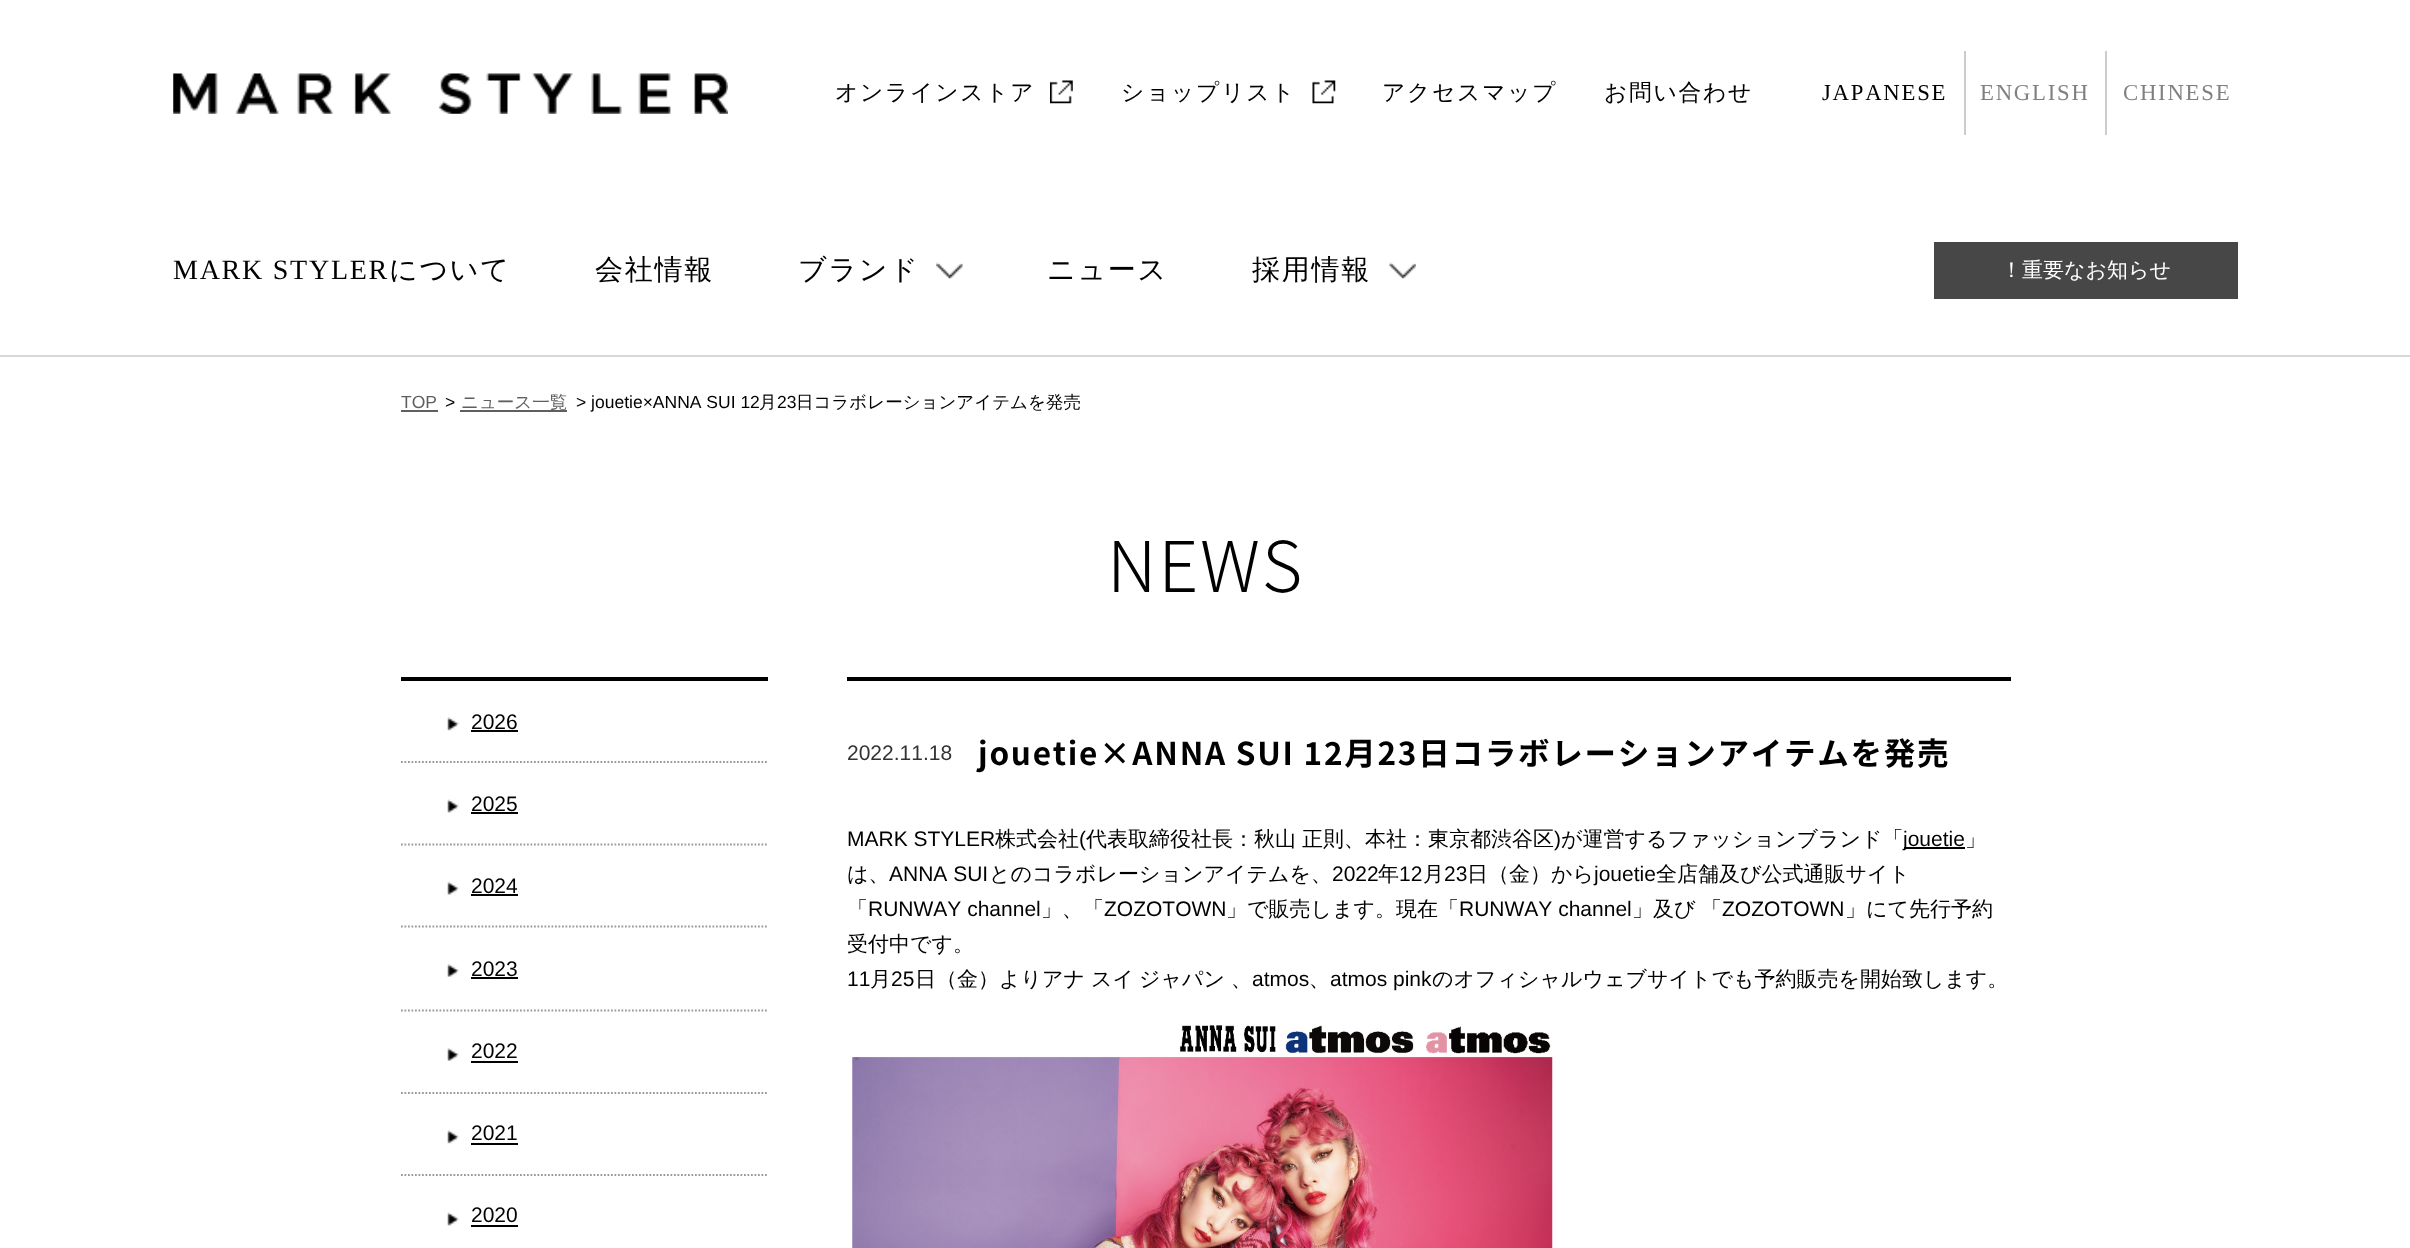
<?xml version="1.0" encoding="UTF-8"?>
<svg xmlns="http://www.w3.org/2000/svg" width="2410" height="1248">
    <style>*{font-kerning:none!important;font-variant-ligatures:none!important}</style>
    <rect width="100%" height="100%" fill="#FFFFFF"/>
    <image x="173" y="73" width="555" height="41" href="img_01.png"/>
    <image x="1050" y="80" width="23" height="24" href="img_02.png"/>
    <text x="835" y="100" font-family="WenQuanYi Zen Hei" font-size="22.75" font-weight="500" letter-spacing="1.75" fill="#000000">オンラインストア</text>
    <image x="1312" y="80" width="24" height="24" href="img_03.png"/>
    <text x="1121" y="100" font-family="WenQuanYi Zen Hei" font-size="22.75" font-weight="500" letter-spacing="1.75" fill="#000000">ショップリスト</text>
    <text x="1382" y="100" font-family="WenQuanYi Zen Hei" font-size="22.75" font-weight="500" letter-spacing="1.75" fill="#000000">アクセスマップ</text>
    <text x="1604" y="100" font-family="WenQuanYi Zen Hei" font-size="22.75" font-weight="500" letter-spacing="1.75" fill="#000000">お問い合わせ</text>
    <rect x="1964" y="51" width="2" height="84" fill="#CCCCCC"/>
    <text x="1822" y="100" font-family="Liberation Serif" font-size="22.75" letter-spacing="1.75" fill="#000000">JAPANESE</text>
    <rect x="2105" y="51" width="2" height="84" fill="#CCCCCC"/>
    <text x="1980" y="100" font-family="Liberation Serif" font-size="22.75" letter-spacing="1.75" fill="#808080">ENGLISH</text>
    <text x="2123" y="100" font-family="Liberation Serif" font-size="22.75" letter-spacing="1.75" fill="#808080">CHINESE</text>
    <rect x="0" y="355" width="2410" height="2" fill="#D7D7D7"/>
    <text x="173" y="279" font-family="Liberation Serif" font-size="28" letter-spacing="1.75" fill="#000000">MARK STYLER</text>
    <text x="389" y="279" font-family="WenQuanYi Zen Hei" font-size="28" font-weight="500" letter-spacing="1.75" fill="#000000">について</text>
    <text x="595" y="279" font-family="WenQuanYi Zen Hei" font-size="28" font-weight="500" letter-spacing="1.75" fill="#000000">会社情報</text>
    <image x="936" y="262" width="27" height="17" href="img_04.png"/>
    <text x="798" y="279" font-family="WenQuanYi Zen Hei" font-size="28" font-weight="500" letter-spacing="1.75" fill="#000000">ブランド</text>
    <text x="1047" y="279" font-family="WenQuanYi Zen Hei" font-size="28" font-weight="500" letter-spacing="1.75" fill="#000000">ニュース</text>
    <image x="1389" y="262" width="27" height="17" href="img_05.png"/>
    <text x="1252" y="279" font-family="WenQuanYi Zen Hei" font-size="28" font-weight="500" letter-spacing="1.75" fill="#000000">採用情報</text>
    <rect x="1934" y="242" width="304" height="57" fill="#474747"/>
    <text x="2001" y="277" font-family="WenQuanYi Zen Hei" font-size="21" font-weight="500" fill="#FFFFFF">！重要なお知らせ</text>
    <text x="401" y="408" font-family="Liberation Sans" font-size="17.5" fill="#5F5F5F">TOP</text>
    <rect x="401" y="410" width="37" height="2" fill="#5F5F5F"/>
    <text x="445" y="408" font-family="Liberation Sans" font-size="17.5" fill="#000000">&gt;</text>
    <rect x="460" y="410" width="107" height="2" fill="#5F5F5F"/>
    <text x="461" y="408" font-family="WenQuanYi Zen Hei" font-size="17.5" font-weight="500" fill="#5F5F5F">ニュース一覧</text>
    <text x="576" y="408" font-family="Liberation Sans" font-size="17.5" fill="#000000">&gt; jouetie×ANNA SUI 12</text>
    <text x="759" y="408" font-family="WenQuanYi Zen Hei" font-size="17.5" font-weight="500" fill="#000000">月</text>
    <text x="777" y="408" font-family="Liberation Sans" font-size="17.5" fill="#000000">23</text>
    <text x="796" y="408" font-family="WenQuanYi Zen Hei" font-size="17.5" font-weight="500" fill="#000000">日コラボレーションアイテムを発売</text>
    <text x="1107" y="592" font-family="Noto Sans JP" font-size="70" font-weight="300" letter-spacing="1.75" fill="#000000">NEWS</text>
    <rect x="401" y="677" width="367" height="4" fill="#000000"/>
    <image x="447" y="717" width="12" height="14" href="img_06.png"/>
    <path d="M 401 762 H 768" fill="none" stroke="#999999" stroke-width="1.8" stroke-dasharray="1.75 1.75"/>
    <text x="471" y="729" font-family="Liberation Sans" font-size="21" fill="#000000">2026</text>
    <rect x="471" y="730" width="47" height="2" fill="#000000"/>
    <image x="447" y="799" width="12" height="14" href="img_07.png"/>
    <path d="M 401 844.5 H 768" fill="none" stroke="#999999" stroke-width="1.8" stroke-dasharray="1.75 1.75"/>
    <text x="471" y="811" font-family="Liberation Sans" font-size="21" fill="#000000">2025</text>
    <rect x="471" y="812" width="47" height="2" fill="#000000"/>
    <image x="447" y="881" width="12" height="14" href="img_08.png"/>
    <path d="M 401 926.5 H 768" fill="none" stroke="#999999" stroke-width="1.8" stroke-dasharray="1.75 1.75"/>
    <text x="471" y="893" font-family="Liberation Sans" font-size="21" fill="#000000">2024</text>
    <rect x="471" y="894" width="47" height="2" fill="#000000"/>
    <image x="447" y="964" width="12" height="13" href="img_09.png"/>
    <path d="M 401 1010.5 H 768" fill="none" stroke="#999999" stroke-width="1.8" stroke-dasharray="1.75 1.75"/>
    <text x="471" y="976" font-family="Liberation Sans" font-size="21" fill="#000000">2023</text>
    <rect x="471" y="977" width="47" height="2" fill="#000000"/>
    <image x="447" y="1048" width="12" height="13" href="img_09.png"/>
    <path d="M 401 1093 H 768" fill="none" stroke="#999999" stroke-width="1.8" stroke-dasharray="1.75 1.75"/>
    <text x="471" y="1058" font-family="Liberation Sans" font-size="21" fill="#000000">2022</text>
    <rect x="471" y="1061" width="47" height="2" fill="#000000"/>
    <image x="447" y="1130" width="12" height="14" href="img_06.png"/>
    <path d="M 401 1175 H 768" fill="none" stroke="#999999" stroke-width="1.8" stroke-dasharray="1.75 1.75"/>
    <text x="471" y="1140" font-family="Liberation Sans" font-size="21" fill="#000000">2021</text>
    <rect x="471" y="1143" width="47" height="2" fill="#000000"/>
    <image x="447" y="1212" width="12" height="14" href="img_07.png"/>
    <text x="471" y="1222" font-family="Liberation Sans" font-size="21" fill="#000000">2020</text>
    <rect x="471" y="1225" width="47" height="2" fill="#000000"/>
    <rect x="847" y="677" width="1164" height="4" fill="#000000"/>
    <text x="847" y="760" font-family="Liberation Sans" font-size="21" fill="#333333">2022.11.18</text>
    <text x="978" y="765" font-family="Noto Sans JP" font-size="31.5" font-weight="700" letter-spacing="1.75" fill="#000000">jouetie×ANNA SUI 12月23日コラボレーションアイテムを発売</text>
    <text x="847" y="846" font-family="Liberation Sans" font-size="21" fill="#000000">MARK STYLER</text>
    <text x="995" y="846" font-family="WenQuanYi Zen Hei" font-size="21" font-weight="500" fill="#000000">株式会社</text>
    <text x="1079" y="846" font-family="Liberation Sans" font-size="21" fill="#000000">(</text>
    <text x="1086" y="846" font-family="WenQuanYi Zen Hei" font-size="21" font-weight="500" fill="#000000">代表取締役社長：秋山</text>
    <text x="1302" y="846" font-family="WenQuanYi Zen Hei" font-size="21" font-weight="500" fill="#000000">正則、本社：東京都渋谷区</text>
    <text x="1554" y="846" font-family="Liberation Sans" font-size="21" fill="#000000">)</text>
    <text x="1561" y="846" font-family="WenQuanYi Zen Hei" font-size="21" font-weight="500" fill="#000000">が運営するファッションブランド「</text>
    <rect x="1904" y="847" width="61" height="2" fill="#000000"/>
    <text x="1903" y="846" font-family="Liberation Sans" font-size="21" fill="#000000">jouetie</text>
    <text x="1965" y="846" font-family="WenQuanYi Zen Hei" font-size="21" font-weight="500" fill="#000000">」</text>
    <text x="847" y="881" font-family="WenQuanYi Zen Hei" font-size="21" font-weight="500" fill="#000000">は、</text>
    <text x="889" y="881" font-family="Liberation Sans" font-size="21" fill="#000000">ANNA SUI</text>
    <text x="989" y="881" font-family="WenQuanYi Zen Hei" font-size="21" font-weight="500" fill="#000000">とのコラボレーションアイテムを、</text>
    <text x="1332" y="881" font-family="Liberation Sans" font-size="21" fill="#000000">2022</text>
    <text x="1378" y="881" font-family="WenQuanYi Zen Hei" font-size="21" font-weight="500" fill="#000000">年</text>
    <text x="1399" y="881" font-family="Liberation Sans" font-size="21" fill="#000000">12</text>
    <text x="1423" y="881" font-family="WenQuanYi Zen Hei" font-size="21" font-weight="500" fill="#000000">月</text>
    <text x="1444" y="881" font-family="Liberation Sans" font-size="21" fill="#000000">23</text>
    <text x="1467" y="881" font-family="WenQuanYi Zen Hei" font-size="21" font-weight="500" fill="#000000">日（金）から</text>
    <text x="1594" y="881" font-family="Liberation Sans" font-size="21" fill="#000000">jouetie</text>
    <text x="1656" y="881" font-family="WenQuanYi Zen Hei" font-size="21" font-weight="500" fill="#000000">全店舗及び公式通販サイト</text>
    <text x="847" y="916" font-family="WenQuanYi Zen Hei" font-size="21" font-weight="500" fill="#000000">「</text>
    <text x="868" y="916" font-family="Liberation Sans" font-size="21" fill="#000000">RUNWAY channel</text>
    <text x="1041" y="916" font-family="WenQuanYi Zen Hei" font-size="21" font-weight="500" fill="#000000">」、「</text>
    <text x="1104" y="916" font-family="Liberation Sans" font-size="21" fill="#000000">ZOZOTOWN</text>
    <text x="1226" y="916" font-family="WenQuanYi Zen Hei" font-size="21" font-weight="500" fill="#000000">」で販売します。現在「</text>
    <text x="1459" y="916" font-family="Liberation Sans" font-size="21" fill="#000000">RUNWAY channel</text>
    <text x="1632" y="916" font-family="WenQuanYi Zen Hei" font-size="21" font-weight="500" fill="#000000">」及び</text>
    <text x="1701" y="916" font-family="WenQuanYi Zen Hei" font-size="21" font-weight="500" fill="#000000">「</text>
    <text x="1722" y="916" font-family="Liberation Sans" font-size="21" fill="#000000">ZOZOTOWN</text>
    <text x="1845" y="916" font-family="WenQuanYi Zen Hei" font-size="21" font-weight="500" fill="#000000">」にて先行予約</text>
    <text x="847" y="951" font-family="WenQuanYi Zen Hei" font-size="21" font-weight="500" fill="#000000">受付中です。</text>
    <text x="847" y="986" font-family="Liberation Sans" font-size="21" fill="#000000">11</text>
    <text x="870" y="986" font-family="WenQuanYi Zen Hei" font-size="21" font-weight="500" fill="#000000">月</text>
    <text x="891" y="986" font-family="Liberation Sans" font-size="21" fill="#000000">25</text>
    <text x="915" y="986" font-family="WenQuanYi Zen Hei" font-size="21" font-weight="500" fill="#000000">日（金）よりアナ</text>
    <text x="1091" y="986" font-family="WenQuanYi Zen Hei" font-size="21" font-weight="500" fill="#000000">スイ</text>
    <text x="1139" y="986" font-family="WenQuanYi Zen Hei" font-size="21" font-weight="500" fill="#000000">ジャパン</text>
    <text x="1231" y="986" font-family="WenQuanYi Zen Hei" font-size="21" font-weight="500" fill="#000000">、</text>
    <text x="1252" y="986" font-family="Liberation Sans" font-size="21" fill="#000000">atmos</text>
    <text x="1309" y="986" font-family="WenQuanYi Zen Hei" font-size="21" font-weight="500" fill="#000000">、</text>
    <text x="1330" y="986" font-family="Liberation Sans" font-size="21" fill="#000000">atmos pink</text>
    <text x="1432" y="986" font-family="WenQuanYi Zen Hei" font-size="21" font-weight="500" fill="#000000">のオフィシャルウェブサイトでも予約販売を開始致します。</text>
    <image x="852" y="1025" width="701" height="223" href="img_10.png"/>
</svg>
